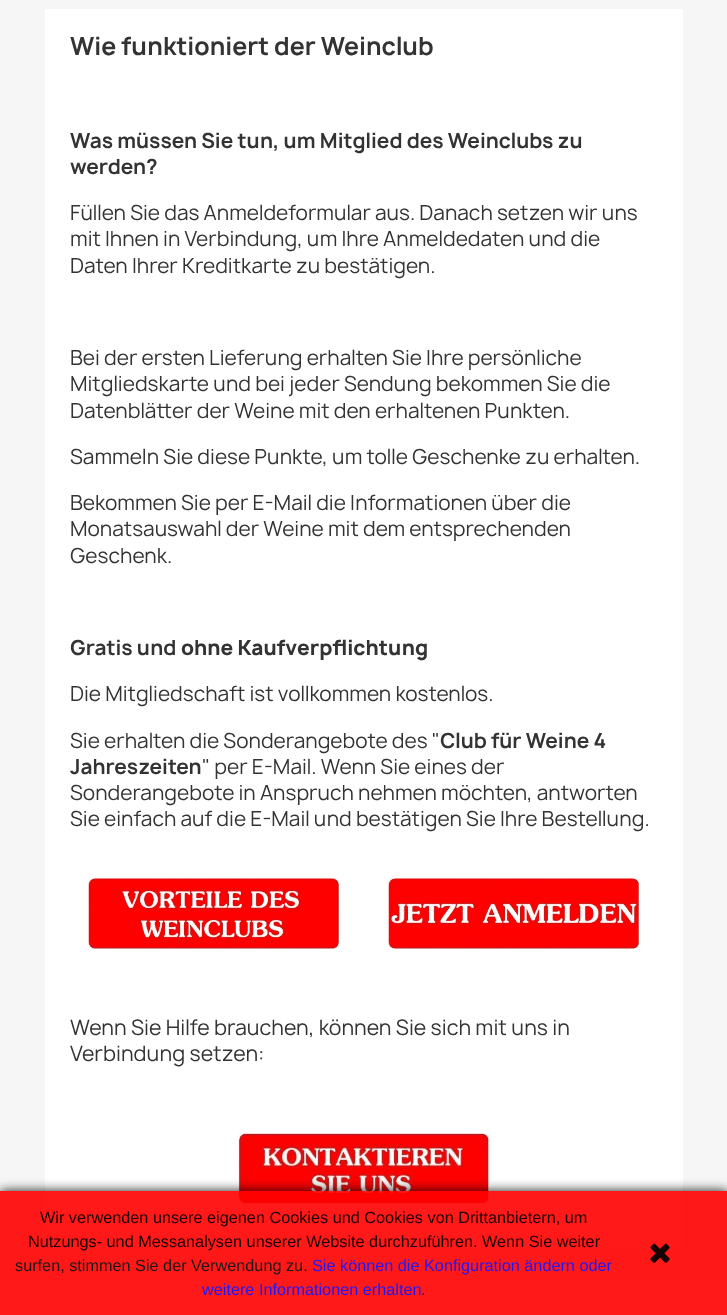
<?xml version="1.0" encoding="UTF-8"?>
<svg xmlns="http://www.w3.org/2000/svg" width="727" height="1315">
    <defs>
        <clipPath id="clip1"><path d="M 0 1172 H 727 V 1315 H 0 Z M 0 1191 H 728 V 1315 H 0 Z" clip-rule="evenodd"/></clipPath>
        <filter id="blur1" x="-50%" y="-200%" width="200%" height="500%"><feGaussianBlur stdDeviation="6"/></filter>
    </defs>
    <rect width="100%" height="100%" fill="#FFFFFF"/>
    <rect x="0" y="0" width="727" height="1280" fill="#F6F6F6"/>
    <rect x="45" y="9" width="638" height="1240" fill="#FFFFFF"/>
    <text x="70" y="55" font-family="Manrope" font-size="23.9" font-weight="700" fill="#333333">Wie funktioniert der Weinclub</text>
    <text font-family="Manrope" font-size="20" font-weight="700" fill="#333333">
        <tspan x="70" y="148">Was müssen Sie tun, um Mitglied des Weinclubs zu</tspan>
        <tspan x="70" y="174">werden?</tspan>
    </text>
    <text font-family="Manrope" font-size="20" fill="#333333">
        <tspan x="70" y="220">Füllen Sie das Anmeldeformular aus. Danach setzen wir uns</tspan>
        <tspan x="70" y="246">mit Ihnen in Verbindung, um Ihre Anmeldedaten und die</tspan>
        <tspan x="70" y="273">Daten Ihrer Kreditkarte zu bestätigen.</tspan>
    </text>
    <text font-family="Manrope" font-size="20" fill="#333333">
        <tspan x="70" y="365">Bei der ersten Lieferung erhalten Sie Ihre persönliche</tspan>
        <tspan x="70" y="391">Mitgliedskarte und bei jeder Sendung bekommen Sie die</tspan>
        <tspan x="70" y="418">Datenblätter der Weine mit den erhaltenen Punkten.</tspan>
    </text>
    <text x="70" y="464" font-family="Manrope" font-size="20" fill="#333333">Sammeln Sie diese Punkte, um tolle Geschenke zu erhalten.</text>
    <text font-family="Manrope" font-size="20" fill="#333333">
        <tspan x="70" y="510">Bekommen Sie per E-Mail die Informationen über die</tspan>
        <tspan x="70" y="536">Monatsauswahl der Weine mit dem entsprechenden</tspan>
        <tspan x="70" y="563">Geschenk.</tspan>
    </text>
    <text x="70" y="655" font-family="Manrope" font-size="20" font-weight="700" fill="#333333">Gratis und</text>
    <text x="181" y="655" font-family="Manrope" font-size="20" font-weight="800" fill="#333333">ohne Kaufverpflichtung</text>
    <text x="70" y="701" font-family="Manrope" font-size="20" fill="#333333">Die Mitgliedschaft ist vollkommen kostenlos.</text>
    <text x="70" y="748" font-family="Manrope" font-size="20" fill="#333333">Sie erhalten die Sonderangebote des "</text>
    <text x="440" y="748" font-family="Manrope" font-size="20" font-weight="700" fill="#333333">Club für Weine 4</text>
    <text x="70" y="774" font-family="Manrope" font-size="20" font-weight="700" fill="#333333">Jahreszeiten</text>
    <text x="202" y="774" font-family="Manrope" font-size="20" fill="#333333">" per E-Mail. Wenn Sie eines der</text>
    <text font-family="Manrope" font-size="20" fill="#333333">
        <tspan x="70" y="800">Sonderangebote in Anspruch nehmen möchten, antworten</tspan>
        <tspan x="70" y="826">Sie einfach auf die E-Mail und bestätigen Sie Ihre Bestellung.</tspan>
    </text>
    <image x="88" y="878" width="251" height="71" href="img_01.png"/>
    <image x="388" y="878" width="251" height="71" href="img_02.png"/>
    <text font-family="Manrope" font-size="20.45" fill="#333333">
        <tspan x="70" y="1035">Wenn Sie Hilfe brauchen, können Sie sich mit uns in</tspan>
        <tspan x="70" y="1061">Verbindung setzen:</tspan>
    </text>
    <image x="238" y="1133" width="251" height="71" href="img_03.png"/>
    <g clip-path="url(#clip1)">
        <rect x="0" y="1191" width="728" height="124" fill="#000000" fill-opacity="0.9" filter="url(#blur1)"/>
    </g>
    <rect x="0" y="1191" width="727" height="124" fill="#FF0000" fill-opacity="0.9"/>
    <text x="40" y="1223" font-family="Liberation Sans" font-size="16.25" fill="#1A0303">Wir verwenden unsere eigenen Cookies und Cookies von Drittanbietern, um</text>
    <text x="28" y="1247" font-family="Liberation Sans" font-size="16.25" fill="#1A0303">Nutzungs- und Messanalysen unserer Website durchzuführen. Wenn Sie weiter</text>
    <text x="15" y="1271" font-family="Liberation Sans" font-size="16.25" fill="#191919">surfen, stimmen Sie der Verwendung zu.</text>
    <text x="312" y="1271" font-family="Liberation Sans" font-size="16.25" fill="#1919FE">Sie können die Konfiguration ändern oder</text>
    <text x="202" y="1295" font-family="Liberation Sans" font-size="16.25" fill="#1919FE">weitere Informationen erhalten</text>
    <text x="421" y="1295" font-family="Liberation Sans" font-size="16.25" fill="#191919">.</text>
    <image x="650" y="1243" width="20" height="20" href="img_04.png"/>
</svg>
